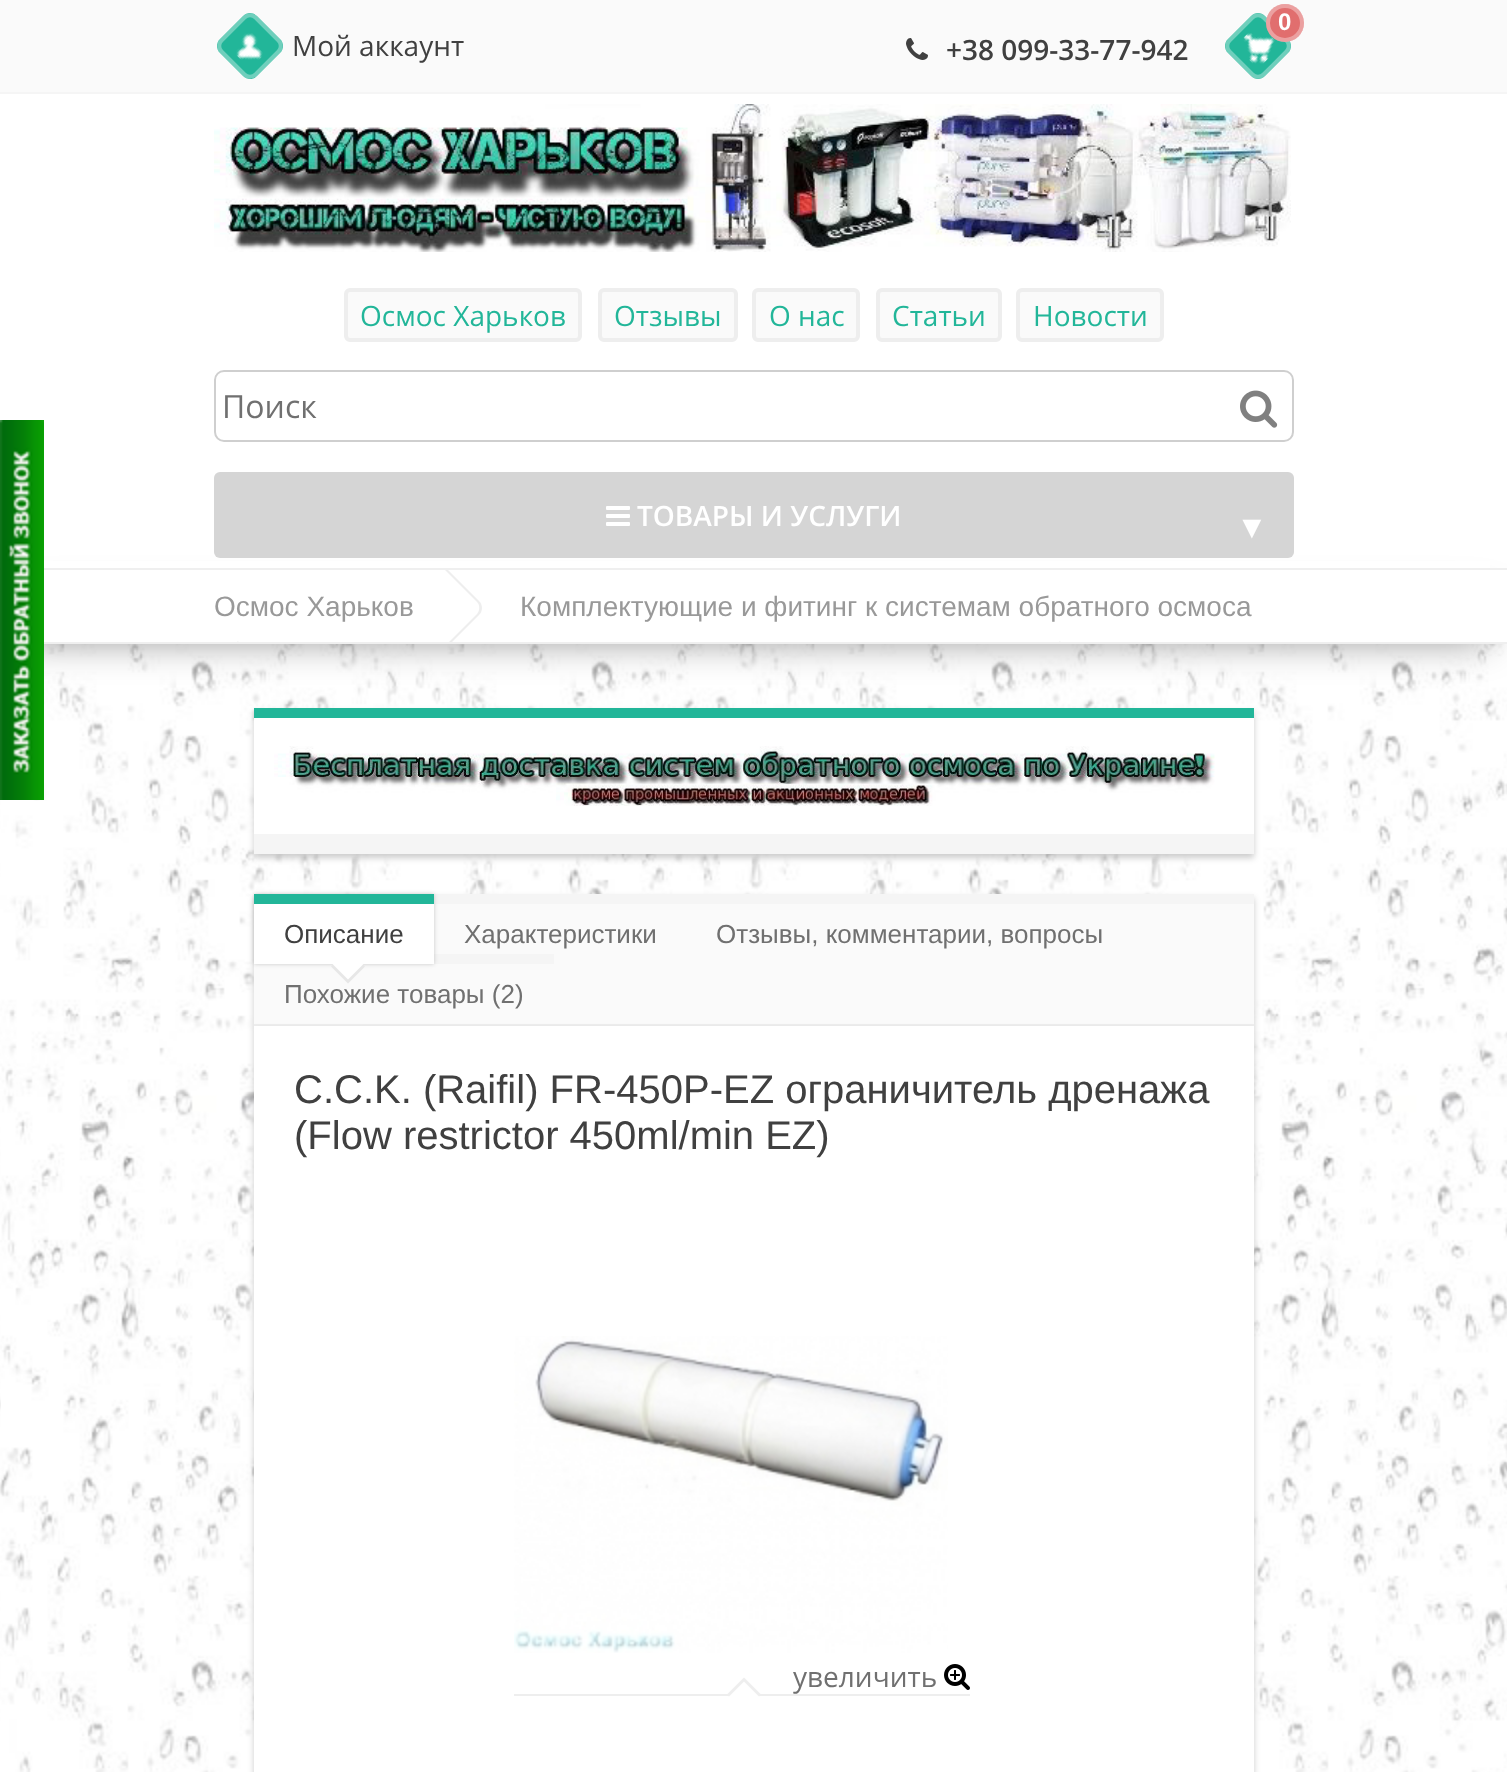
<?xml version="1.0" encoding="UTF-8"?>
<svg xmlns="http://www.w3.org/2000/svg" width="1507" height="1772">
    <defs>
        <filter id="blur1" x="-50%" y="-200%" width="200%" height="500%"><feGaussianBlur stdDeviation="20"/></filter>
        <clipPath id="clip1"><rect x="204" y="570" width="1100" height="72"/></clipPath>
        <filter id="blur2" x="-50%" y="-200%" width="200%" height="500%"><feGaussianBlur stdDeviation="3"/></filter>
        <filter id="blur3" x="-50%" y="-200%" width="200%" height="500%"><feGaussianBlur stdDeviation="2"/></filter>
    </defs>
    <rect width="100%" height="100%" fill="#FFFFFF"/>
    <image x="0" y="644" width="1507" height="1128" href="img_07.png"/>
    <rect x="20" y="602" width="1468" height="36" fill="#000000" fill-opacity="0.51" filter="url(#blur1)"/>
    <rect x="18" y="561" width="1472" height="7" fill="#FFFFFF"/>
    <rect x="0" y="0" width="1507" height="92" fill="#FAFAFA"/>
    <rect x="0" y="92" width="1507" height="2" fill="#F5F5F5"/>
    <path d="M 1265 16 L 1288 39 C 1292 43 1292 49 1288 53 L 1265 76 C 1261 80 1255 80 1251 76 L 1228 53 C 1224 49 1224 43 1228 39 L 1251 16 C 1255 12 1261 12 1265 16 Z" fill="#22B699"/>
    <image x="1243" y="33" width="32" height="31" href="img_01.png"/>
    <path d="M 1263.5 17.5 L 1286.5 40.5 C 1289.5 43.5 1289.5 48.5 1286.5 51.5 L 1263.5 74.5 C 1260.5 77.5 1255.5 77.5 1252.5 74.5 L 1229.5 51.5 C 1226.5 48.5 1226.5 43.5 1229.5 40.5 L 1252.5 17.5 C 1255.5 14.5 1260.5 14.5 1263.5 17.5 Z" fill="none" stroke="#FFFFFF" stroke-opacity="0.35" stroke-width="4"/>
    <circle cx="1285" cy="23" r="19" fill="#E16E6E"/>
    <circle cx="1285" cy="23" r="17" fill="none" stroke="#FFFFFF" stroke-opacity="0.35" stroke-width="4"/>
    <text x="1278" y="30" font-family="Liberation Sans" font-size="24" font-weight="700" fill="#FFFFFF">0</text>
    <path d="M 257 16 L 280 39 C 284 43 284 49 280 53 L 257 76 C 253 80 247 80 243 76 L 220 53 C 216 49 216 43 220 39 L 243 16 C 247 12 253 12 257 16 Z" fill="#22B699"/>
    <image x="236" y="33" width="27" height="27" href="img_02.png"/>
    <path d="M 255.5 17.5 L 278.5 40.5 C 281.5 43.5 281.5 48.5 278.5 51.5 L 255.5 74.5 C 252.5 77.5 247.5 77.5 244.5 74.5 L 221.5 51.5 C 218.5 48.5 218.5 43.5 221.5 40.5 L 244.5 17.5 C 247.5 14.5 252.5 14.5 255.5 17.5 Z" fill="none" stroke="#FFFFFF" stroke-opacity="0.35" stroke-width="4"/>
    <text x="292" y="56" font-family="Open Sans" font-size="28" fill="#404040">Мой аккаунт</text>
    <image x="906" y="38" width="22" height="22" href="img_03.png"/>
    <text x="946" y="60" font-family="Open Sans" font-size="28" font-weight="600" fill="#404040">+38 099-33-77-942</text>
    <image x="214" y="104" width="1077" height="148" href="img_04.png"/>
    <rect x="346" y="290" width="234" height="50" rx="4" fill="#FAFAFA" stroke="#EEEEEE" stroke-width="4"/>
    <text x="360" y="326" font-family="Open Sans" font-size="28" fill="#22B699">Осмос Харьков</text>
    <rect x="600" y="290" width="136" height="50" rx="4" fill="#FAFAFA" stroke="#EEEEEE" stroke-width="4"/>
    <text x="614" y="326" font-family="Open Sans" font-size="28" fill="#22B699">Отзывы</text>
    <rect x="754" y="290" width="104" height="50" rx="4" fill="#FAFAFA" stroke="#EEEEEE" stroke-width="4"/>
    <text x="769" y="326" font-family="Open Sans" font-size="28" fill="#22B699">О нас</text>
    <rect x="878" y="290" width="122" height="50" rx="4" fill="#FAFAFA" stroke="#EEEEEE" stroke-width="4"/>
    <text x="892" y="326" font-family="Open Sans" font-size="28" fill="#22B699">Статьи</text>
    <rect x="1018" y="290" width="144" height="50" rx="4" fill="#FAFAFA" stroke="#EEEEEE" stroke-width="4"/>
    <text x="1033" y="326" font-family="Open Sans" font-size="28" fill="#22B699">Новости</text>
    <rect x="215" y="371" width="1078" height="70" rx="9" fill="none" stroke="#CFCFCF" stroke-width="2"/>
    <text x="222" y="418" font-family="Open Sans" font-size="32" fill="#707070">Поиск</text>
    <image x="1240" y="390" width="38" height="38" href="img_05.png"/>
    <rect x="214" y="472" width="1080" height="86" rx="6" fill="#D5D5D5"/>
    <image x="606" y="506" width="24" height="20" href="img_06.png"/>
    <text x="637" y="526" font-family="Open Sans" font-size="28" font-weight="600" fill="#FFFFFF">ТОВАРЫ И УСЛУГИ</text>
    <text x="1236" y="538" font-family="Liberation Sans" font-size="32" font-weight="700" font-style="italic" fill="#FFFFFF">▼</text>
    <rect x="0" y="570" width="1507" height="72" fill="#FFFFFF"/>
    <rect x="0" y="568" width="1507" height="2" fill="#EFEFEF"/>
    <rect x="0" y="642" width="1507" height="2" fill="#EFEFEF"/>
    <g clip-path="url(#clip1)">
        <path d="M 448 570 L 479 601 C 483 605 483 611 479 615 L 448 646 C 444 650 437 650 433 646 L 402 615 C 398 611 398 605 402 601 L 433 570 C 437 566 444 566 448 570 Z" fill="#EEEEEE"/>
        <path d="M 443 568 L 477 602 C 480 605 480 610 477 614 L 443 648 C 440 651 435 651 432 648 L 398 614 C 395 610 395 605 398 602 L 432 568 C 435 565 440 565 443 568 Z" fill="#FFFFFF"/>
    </g>
    <text x="214" y="616" font-family="Liberation Sans" font-size="28" fill="#999999">Осмос Харьков</text>
    <text x="520" y="616" font-family="Liberation Sans" font-size="28" fill="#999999">Комплектующие и фитинг к системам обратного осмоса</text>
    <g clip-path="url(#clip1)">
        <path d="M 242 644 L 273 675 C 277 679 277 685 273 689 L 242 720 C 238 724 232 724 228 720 L 197 689 C 193 685 193 679 197 675 L 228 644 C 232 640 238 640 242 644 Z" fill="#EEEEEE"/>
        <path d="M 238 642 L 272 676 C 275 679 275 684 272 688 L 238 722 C 235 725 229 725 226 722 L 192 688 C 189 684 189 679 192 676 L 226 642 C 229 639 235 639 238 642 Z" fill="#FFFFFF"/>
        <path d="M 1064 644 L 1095 675 C 1099 679 1099 685 1095 689 L 1064 720 C 1060 724 1054 724 1050 720 L 1019 689 C 1015 685 1015 679 1019 675 L 1050 644 C 1054 640 1060 640 1064 644 Z" fill="#EEEEEE"/>
        <path d="M 1060 642 L 1094 676 C 1097 679 1097 684 1094 688 L 1060 722 C 1057 725 1052 725 1049 722 L 1015 688 C 1012 684 1012 679 1015 676 L 1049 642 C 1052 639 1057 639 1060 642 Z" fill="#FFFFFF"/>
    </g>
    <image x="0" y="420" width="44" height="380" href="img_08.png"/>
    <rect x="254" y="712" width="1000" height="146" fill="#000000" fill-opacity="0.2" filter="url(#blur2)"/>
    <rect x="254" y="718" width="1000" height="116" fill="#FFFFFF"/>
    <rect x="254" y="708" width="1000" height="10" fill="#22B699"/>
    <rect x="254" y="834" width="1000" height="20" fill="#F5F5F5"/>
    <image x="274" y="746" width="941" height="60" href="img_09.png"/>
    <rect x="254" y="898" width="1000" height="132" fill="#000000" fill-opacity="0.2" filter="url(#blur2)"/>
    <rect x="254" y="904" width="1000" height="120" fill="#FAFAFA"/>
    <rect x="1134" y="894" width="120" height="10" fill="#F5F5F5"/>
    <rect x="254" y="1024" width="1000" height="2" fill="#EEEEEE"/>
    <rect x="434" y="894" width="700" height="10" fill="#F5F5F5"/>
    <rect x="434" y="954" width="120" height="10" fill="#F5F5F5"/>
    <rect x="254" y="894" width="180" height="70" fill="#000000" fill-opacity="0.2" filter="url(#blur3)"/>
    <rect x="254" y="904" width="180" height="60" fill="#FFFFFF"/>
    <rect x="254" y="894" width="180" height="10" fill="#22B699"/>
    <text x="284" y="943" font-family="Liberation Sans" font-size="26" fill="#404040">Описание</text>
    <path d="M 348 949.5 L 365 966.5 L 348 983.5 L 331 966.5 Z" fill="#E7E7E7"/>
    <path d="M 348 945.5 L 365 962.5 L 348 979.5 L 331 962.5 Z" fill="#FFFFFF"/>
    <text x="464" y="943" font-family="Liberation Sans" font-size="26" fill="#707070">Характеристики</text>
    <text x="716" y="943" font-family="Liberation Sans" font-size="26" fill="#707070">Отзывы, комментарии, вопросы</text>
    <text x="284" y="1003" font-family="Liberation Sans" font-size="26" fill="#707070">Похожие товары (2)</text>
    <rect x="254" y="1030" width="1000" height="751" fill="#000000" fill-opacity="0.2" filter="url(#blur2)"/>
    <rect x="254" y="1026" width="1000" height="746" fill="#FFFFFF"/>
    <text font-family="Liberation Sans" font-size="40" fill="#404040">
        <tspan x="294" y="1103">C.C.K. (Raifil) FR-450P-EZ ограничитель дренажа</tspan>
        <tspan x="294" y="1149">(Flow restrictor 450ml/min EZ)</tspan>
    </text>
    <rect x="514" y="1694" width="456" height="2" fill="#EEEEEE"/>
    <path d="M 744 1677.5 L 761 1694.5 L 744 1711.5 L 727 1694.5 Z" fill="#EEEEEE"/>
    <image x="514" y="1336" width="434" height="317" href="img_10.png"/>
    <text x="793" y="1687" font-family="Open Sans" font-size="28" fill="#707070">увеличить</text>
    <image x="944" y="1664" width="26" height="26" href="img_11.png"/>
    <path d="M 744 1681.5 L 761 1698.5 L 744 1715.5 L 727 1698.5 Z" fill="#FFFFFF"/>
</svg>
